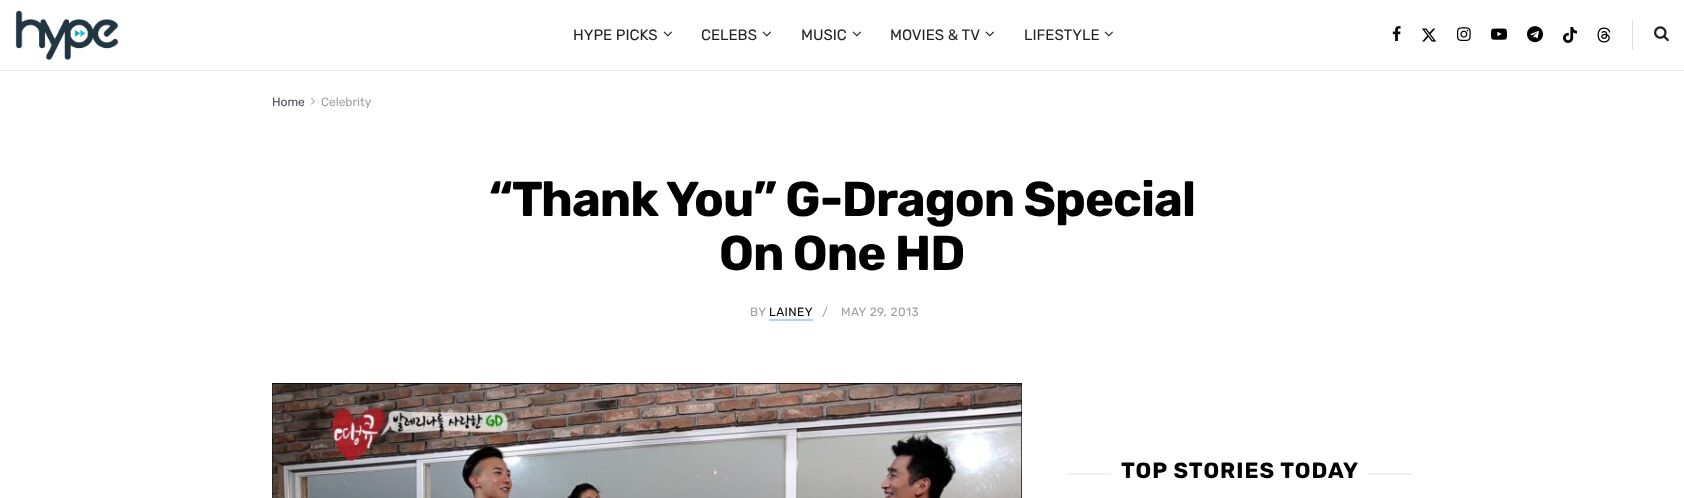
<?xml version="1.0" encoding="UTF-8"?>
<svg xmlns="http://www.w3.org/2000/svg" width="1684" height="498">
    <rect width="100%" height="100%" fill="#FFFFFF"/>
    <rect x="0" y="70" width="1684" height="1" fill="#E8E8E8"/>
    <image x="15" y="10" width="104" height="50" href="img_01.png"/>
    <text x="573" y="40" font-family="Rubik" font-size="15" fill="#212121">HYPE PICKS</text>
    <image x="663" y="31" width="9" height="6" href="img_02.png"/>
    <text x="701" y="40" font-family="Rubik" font-size="15" fill="#212121">CELEBS</text>
    <image x="762" y="31" width="9" height="6" href="img_02.png"/>
    <text x="801" y="40" font-family="Rubik" font-size="15" fill="#212121">MUSIC</text>
    <image x="852" y="31" width="9" height="6" href="img_02.png"/>
    <text x="890" y="40" font-family="Rubik" font-size="15" fill="#212121">MOVIES &amp; TV</text>
    <image x="985" y="31" width="9" height="6" href="img_02.png"/>
    <text x="1024" y="40" font-family="Rubik" font-size="15" fill="#212121">LIFESTYLE</text>
    <image x="1104" y="31" width="9" height="6" href="img_02.png"/>
    <image x="1392" y="26" width="9" height="15" href="img_03.png"/>
    <image x="1422" y="28" width="15" height="14" href="img_04.png"/>
    <image x="1457" y="27" width="14" height="14" href="img_05.png"/>
    <image x="1491" y="28" width="16" height="12" href="img_06.png"/>
    <image x="1527" y="26" width="16" height="17" href="img_07.png"/>
    <image x="1563" y="27" width="14" height="16" href="img_08.png"/>
    <image x="1597" y="27" width="14" height="16" href="img_09.png"/>
    <rect x="1632" y="20" width="1" height="30" fill="#E0E0E0"/>
    <image x="1654" y="26" width="15" height="16" href="img_10.png"/>
    <text x="272" y="106" font-family="Rubik" font-size="12" fill="#3F4850">Home</text>
    <image x="311" y="98" width="4" height="7" href="img_11.png"/>
    <text x="321" y="106" font-family="Rubik" font-size="12" fill="#A0A0A0">Celebrity</text>
    <text x="489" y="216" font-family="Rubik" font-size="49" font-weight="700" letter-spacing="-1" fill="#000000">“Thank You” G-Dragon Special</text>
    <text x="719" y="270" font-family="Rubik" font-size="49" font-weight="700" letter-spacing="-1" fill="#000000">On One HD</text>
    <text x="750" y="316" font-family="Rubik" font-size="12" letter-spacing="0.4" fill="#A0A0A0">BY</text>
    <text x="769" y="316" font-family="Rubik" font-size="12" letter-spacing="0.4" fill="#000000">LAINEY</text>
    <rect x="769" y="319" width="44" height="2" fill="#ADD8E6"/>
    <text x="822" y="316" font-family="Rubik" font-size="12" letter-spacing="0.4" fill="#A0A0A0">/</text>
    <text x="841" y="316" font-family="Rubik" font-size="12" letter-spacing="0.4" fill="#A0A0A0">MAY 29, 2013</text>
    <image x="272" y="383" width="750" height="115" href="img_12.png"/>
    <rect x="1067" y="473" width="345" height="2" fill="#F1F1F1"/>
    <rect x="1111" y="473" width="257" height="2" fill="#FFFFFF"/>
    <text x="1121" y="478" font-family="Rubik" font-size="22" font-weight="700" letter-spacing="1" fill="#000000">TOP STORIES TODAY</text>
</svg>
